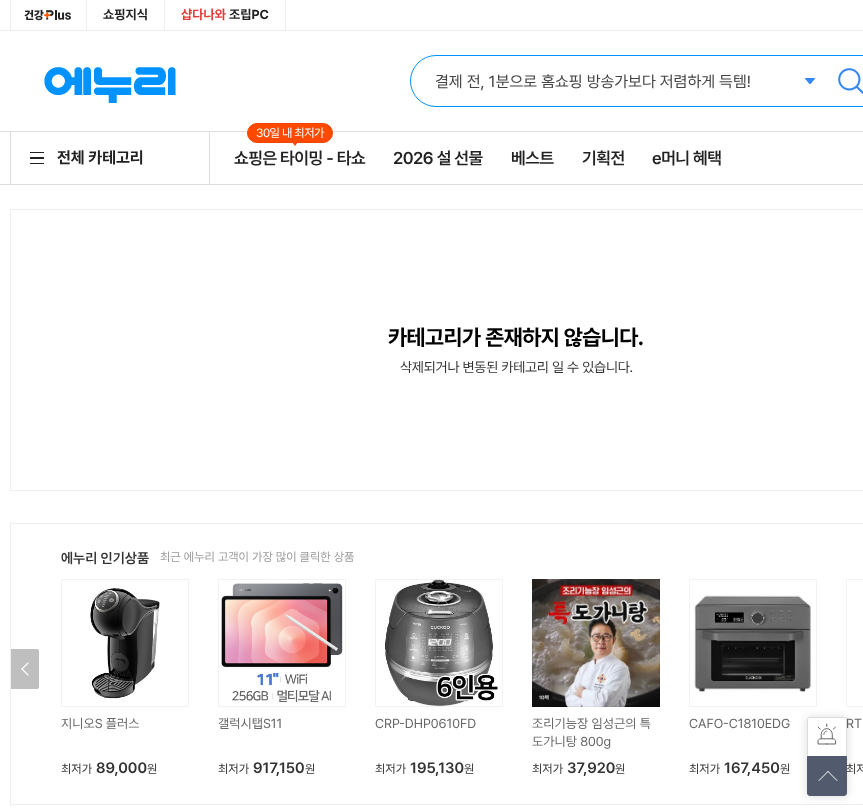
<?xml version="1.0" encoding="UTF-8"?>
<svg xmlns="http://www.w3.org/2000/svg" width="863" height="812">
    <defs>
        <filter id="blur1" x="-50%" y="-200%" width="200%" height="500%"><feGaussianBlur stdDeviation="5"/></filter>
    </defs>
    <rect width="100%" height="100%" fill="#FFFFFF"/>
    <rect x="0" y="184" width="863" height="1" fill="#DDDDDD"/>
    <rect x="0" y="30" width="863" height="1" fill="#EEEEEE"/>
    <rect x="10" y="0" width="1" height="30" fill="#EEEEEE"/>
    <rect x="86" y="0" width="1" height="30" fill="#EEEEEE"/>
    <image x="24" y="9" width="47" height="12" href="img_01.png"/>
    <rect x="164" y="0" width="1" height="30" fill="#EEEEEE"/>
    <text x="103" y="19" font-family="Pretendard" font-size="13" font-weight="700" fill="#222222">쇼핑지식</text>
    <rect x="285" y="0" width="1" height="30" fill="#EEEEEE"/>
    <text x="181" y="19" font-family="Pretendard" font-size="13" font-weight="700" fill="#E53B38">샵다나와</text>
    <text x="229" y="19" font-family="Pretendard" font-size="13" font-weight="700" fill="#222222">조립PC</text>
    <image x="44" y="67" width="132" height="40" href="img_02.png"/>
    <rect x="410.5" y="55.5" width="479" height="51" rx="25.5" fill="none" stroke="#0092FF"/>
    <text x="435" y="87" font-family="Pretendard" font-size="16" fill="#444444">결제 전, 1분으로 홈쇼핑 방송가보다 저렴하게 득템!</text>
    <image x="805" y="78" width="10" height="6" href="img_03.png"/>
    <image x="838" y="68" width="25" height="26" href="img_04.png"/>
    <rect x="209" y="132" width="1" height="52" fill="#DDDDDD"/>
    <rect x="10" y="132" width="1" height="52" fill="#DDDDDD"/>
    <rect x="30" y="152" width="14" height="1" fill="#222222"/>
    <rect x="30" y="157" width="14" height="2" fill="#222222"/>
    <rect x="30" y="163" width="14" height="1" fill="#222222"/>
    <text x="57" y="163" font-family="Pretendard" font-size="16" font-weight="700" fill="#222222">전체 카테고리</text>
    <rect x="0" y="131" width="863" height="1" fill="#DDDDDD"/>
    <rect x="247.5" y="123.5" width="85" height="19" rx="9.5" fill="#FF4900" stroke="#F34500"/>
    <text x="256" y="137" font-family="Pretendard" font-size="12" letter-spacing="-0.5" fill="#FFFFFF">30일 내 최저가</text>
    <path d="M 292 142 H 298 L 295 146 Z" fill="#FF4900"/>
    <text x="234" y="164" font-family="Pretendard" font-size="17" font-weight="600" letter-spacing="-0.5" fill="#222222">쇼핑은 타이밍 - 타쇼</text>
    <text x="393" y="164" font-family="Pretendard" font-size="17" font-weight="600" letter-spacing="-0.5" fill="#222222">2026 설 선물</text>
    <text x="511" y="164" font-family="Pretendard" font-size="17" font-weight="600" letter-spacing="-0.5" fill="#222222">베스트</text>
    <text x="582" y="164" font-family="Pretendard" font-size="17" font-weight="600" letter-spacing="-0.5" fill="#222222">기획전</text>
    <text x="652" y="164" font-family="Pretendard" font-size="17" font-weight="600" letter-spacing="-0.5" fill="#222222">e머니 혜택</text>
    <rect x="10.5" y="209.5" width="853" height="281" fill="none" stroke="#EEEEEE"/>
    <text x="388" y="345" font-family="Pretendard" font-size="22" font-weight="700" letter-spacing="-0.5" fill="#000000">카테고리가 존재하지 않습니다.</text>
    <text x="400" y="372" font-family="Pretendard" font-size="14" letter-spacing="-0.25" fill="#333333">삭제되거나 변동된 카테고리 일 수 있습니다.</text>
    <rect x="10.5" y="523.5" width="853" height="281" fill="none" stroke="#EEEEEE"/>
    <text x="61" y="563" font-family="Pretendard" font-size="14" font-weight="600" fill="#333333">에누리 인기상품</text>
    <text x="160" y="561" font-family="Pretendard" font-size="12" fill="#999999">최근 에누리 고객이 가장 많이 클릭한 상품</text>
    <image x="11" y="649" width="28" height="40" href="img_05.png"/>
    <image x="90" y="588" width="70" height="111" href="img_06.png"/>
    <rect x="61.5" y="579.5" width="127" height="127" fill="none" stroke="#F2F2F2"/>
    <text x="61" y="728" font-family="Pretendard" font-size="13" fill="#666666">지니오S 플러스</text>
    <text x="61" y="773" font-family="Pretendard" font-size="12" fill="#333333">최저가</text>
    <text x="96" y="773" font-family="Pretendard" font-size="15" font-weight="600" fill="#333333">89,000</text>
    <text x="147" y="773" font-family="Pretendard" font-size="12" fill="#333333">원</text>
    <image x="221" y="583" width="122" height="119" href="img_07.png"/>
    <rect x="218.5" y="579.5" width="127" height="127" fill="none" stroke="#F2F2F2"/>
    <text x="218" y="728" font-family="Pretendard" font-size="13" fill="#666666">갤럭시탭S11</text>
    <text x="218" y="773" font-family="Pretendard" font-size="12" fill="#333333">최저가</text>
    <text x="253" y="773" font-family="Pretendard" font-size="15" font-weight="600" fill="#333333">917,150</text>
    <text x="305" y="773" font-family="Pretendard" font-size="12" fill="#333333">원</text>
    <image x="385" y="579" width="113" height="127" href="img_08.png"/>
    <rect x="375.5" y="579.5" width="127" height="127" fill="none" stroke="#000000" stroke-opacity="0.05"/>
    <text x="375" y="728" font-family="Pretendard" font-size="13" fill="#666666">CRP-DHP0610FD</text>
    <text x="375" y="773" font-family="Pretendard" font-size="12" fill="#333333">최저가</text>
    <text x="410" y="773" font-family="Pretendard" font-size="15" font-weight="600" fill="#333333">195,130</text>
    <text x="464" y="773" font-family="Pretendard" font-size="12" fill="#333333">원</text>
    <image x="532" y="579" width="128" height="128" href="img_09.png"/>
    <rect x="532.5" y="579.5" width="127" height="127" fill="none" stroke="#000000" stroke-opacity="0.05"/>
    <text font-family="Pretendard" font-size="13" fill="#666666">
        <tspan x="532" y="728">조리기능장 임성근의 특</tspan>
        <tspan x="532" y="746">도가니탕 800g</tspan>
    </text>
    <text x="532" y="773" font-family="Pretendard" font-size="12" fill="#333333">최저가</text>
    <text x="567" y="773" font-family="Pretendard" font-size="15" font-weight="600" fill="#333333">37,920</text>
    <text x="615" y="773" font-family="Pretendard" font-size="12" fill="#333333">원</text>
    <image x="694" y="595" width="117" height="97" href="img_10.png"/>
    <rect x="689.5" y="579.5" width="127" height="127" fill="none" stroke="#F2F2F2"/>
    <text x="689" y="728" font-family="Pretendard" font-size="13" fill="#666666">CAFO-C1810EDG</text>
    <text x="689" y="773" font-family="Pretendard" font-size="12" fill="#333333">최저가</text>
    <text x="724" y="773" font-family="Pretendard" font-size="15" font-weight="600" fill="#333333">167,450</text>
    <text x="780" y="773" font-family="Pretendard" font-size="12" fill="#333333">원</text>
    <rect x="846.5" y="579.5" width="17" height="127" fill="none" stroke="#F2F2F2"/>
    <text x="846" y="728" font-family="Pretendard" font-size="13" fill="#666666">RT</text>
    <text x="846" y="773" font-family="Pretendard" font-size="12" fill="#333333">최저</text>
    <rect x="807" y="718" width="40" height="78" fill="#000000" fill-opacity="0.15" filter="url(#blur1)"/>
    <path d="M 810 717.5 H 844 C 845.5 717.5 846.5 718.5 846.5 720 V 756.5 H 807.5 V 720 C 807.5 718.5 808.5 717.5 810 717.5 Z" fill="#FFFFFF" stroke="#DDDDDD"/>
    <image x="817" y="723" width="20" height="22" href="img_11.png"/>
    <path d="M 807.5 756.5 H 846.5 V 793 C 846.5 794.5 845.5 795.5 844 795.5 H 810 C 808.5 795.5 807.5 794.5 807.5 793 Z" fill="#515B6D" stroke="#515B6D"/>
    <image x="818" y="771" width="20" height="10" href="img_12.png"/>
</svg>
